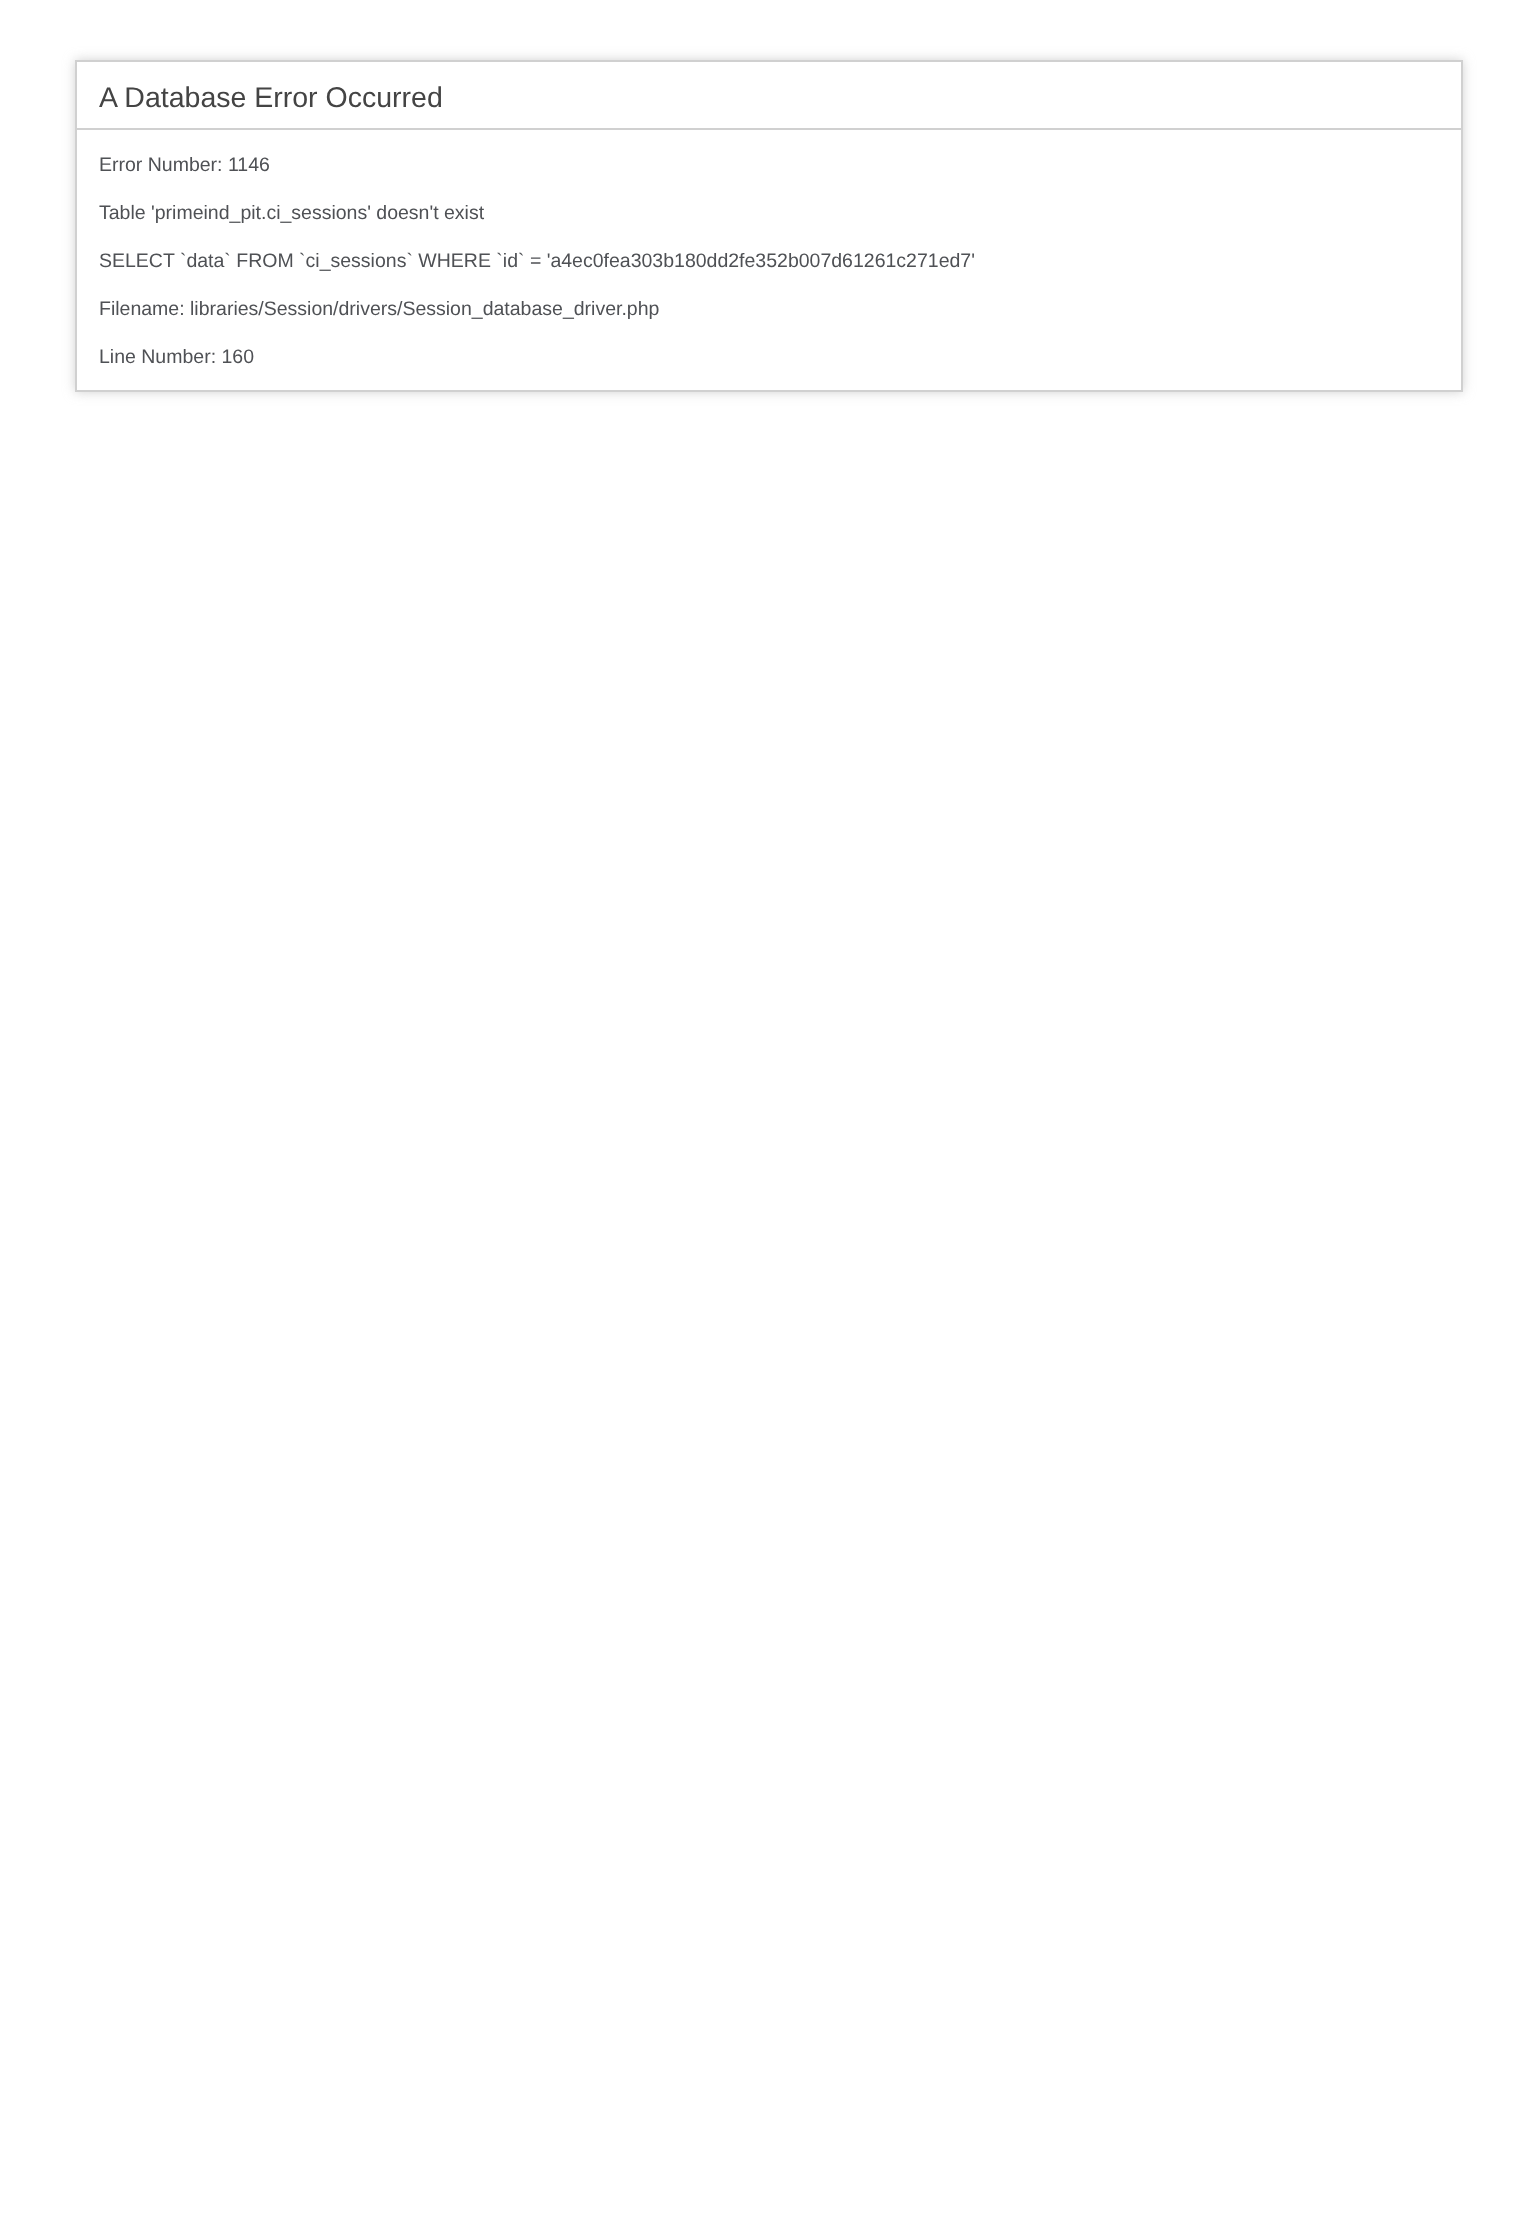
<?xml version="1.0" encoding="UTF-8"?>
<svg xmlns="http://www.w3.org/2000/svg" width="1537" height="2235">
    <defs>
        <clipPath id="clip1"><path d="M 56 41 H 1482 V 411 H 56 Z M 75 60 H 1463 V 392 H 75 Z" clip-rule="evenodd"/></clipPath>
        <filter id="blur1" x="-50%" y="-200%" width="200%" height="500%"><feGaussianBlur stdDeviation="6"/></filter>
    </defs>
    <rect width="100%" height="100%" fill="#FFFFFF"/>
    <g clip-path="url(#clip1)">
        <rect x="75" y="60" width="1388" height="332" fill="#D0D0D0" filter="url(#blur1)"/>
    </g>
    <rect x="76" y="61" width="1386" height="330" fill="none" stroke="#D0D0D0" stroke-width="2"/>
    <rect x="77" y="128" width="1384" height="2" fill="#D0D0D0"/>
    <text x="99" y="107" font-family="Liberation Sans" font-size="28.5" fill="#444444">A Database Error Occurred</text>
    <text x="99" y="171" font-family="Liberation Sans" font-size="19.5" fill="#4F5155">Error Number: 1146</text>
    <text x="99" y="219" font-family="Liberation Sans" font-size="19.5" fill="#4F5155">Table 'primeind_pit.ci_sessions' doesn't exist</text>
    <text x="99" y="267" font-family="Liberation Sans" font-size="19.5" fill="#4F5155">SELECT `data` FROM `ci_sessions` WHERE `id` = 'a4ec0fea303b180dd2fe352b007d61261c271ed7'</text>
    <text x="99" y="315" font-family="Liberation Sans" font-size="19.5" fill="#4F5155">Filename: libraries/Session/drivers/Session_database_driver.php</text>
    <text x="99" y="363" font-family="Liberation Sans" font-size="19.5" fill="#4F5155">Line Number: 160</text>
</svg>
